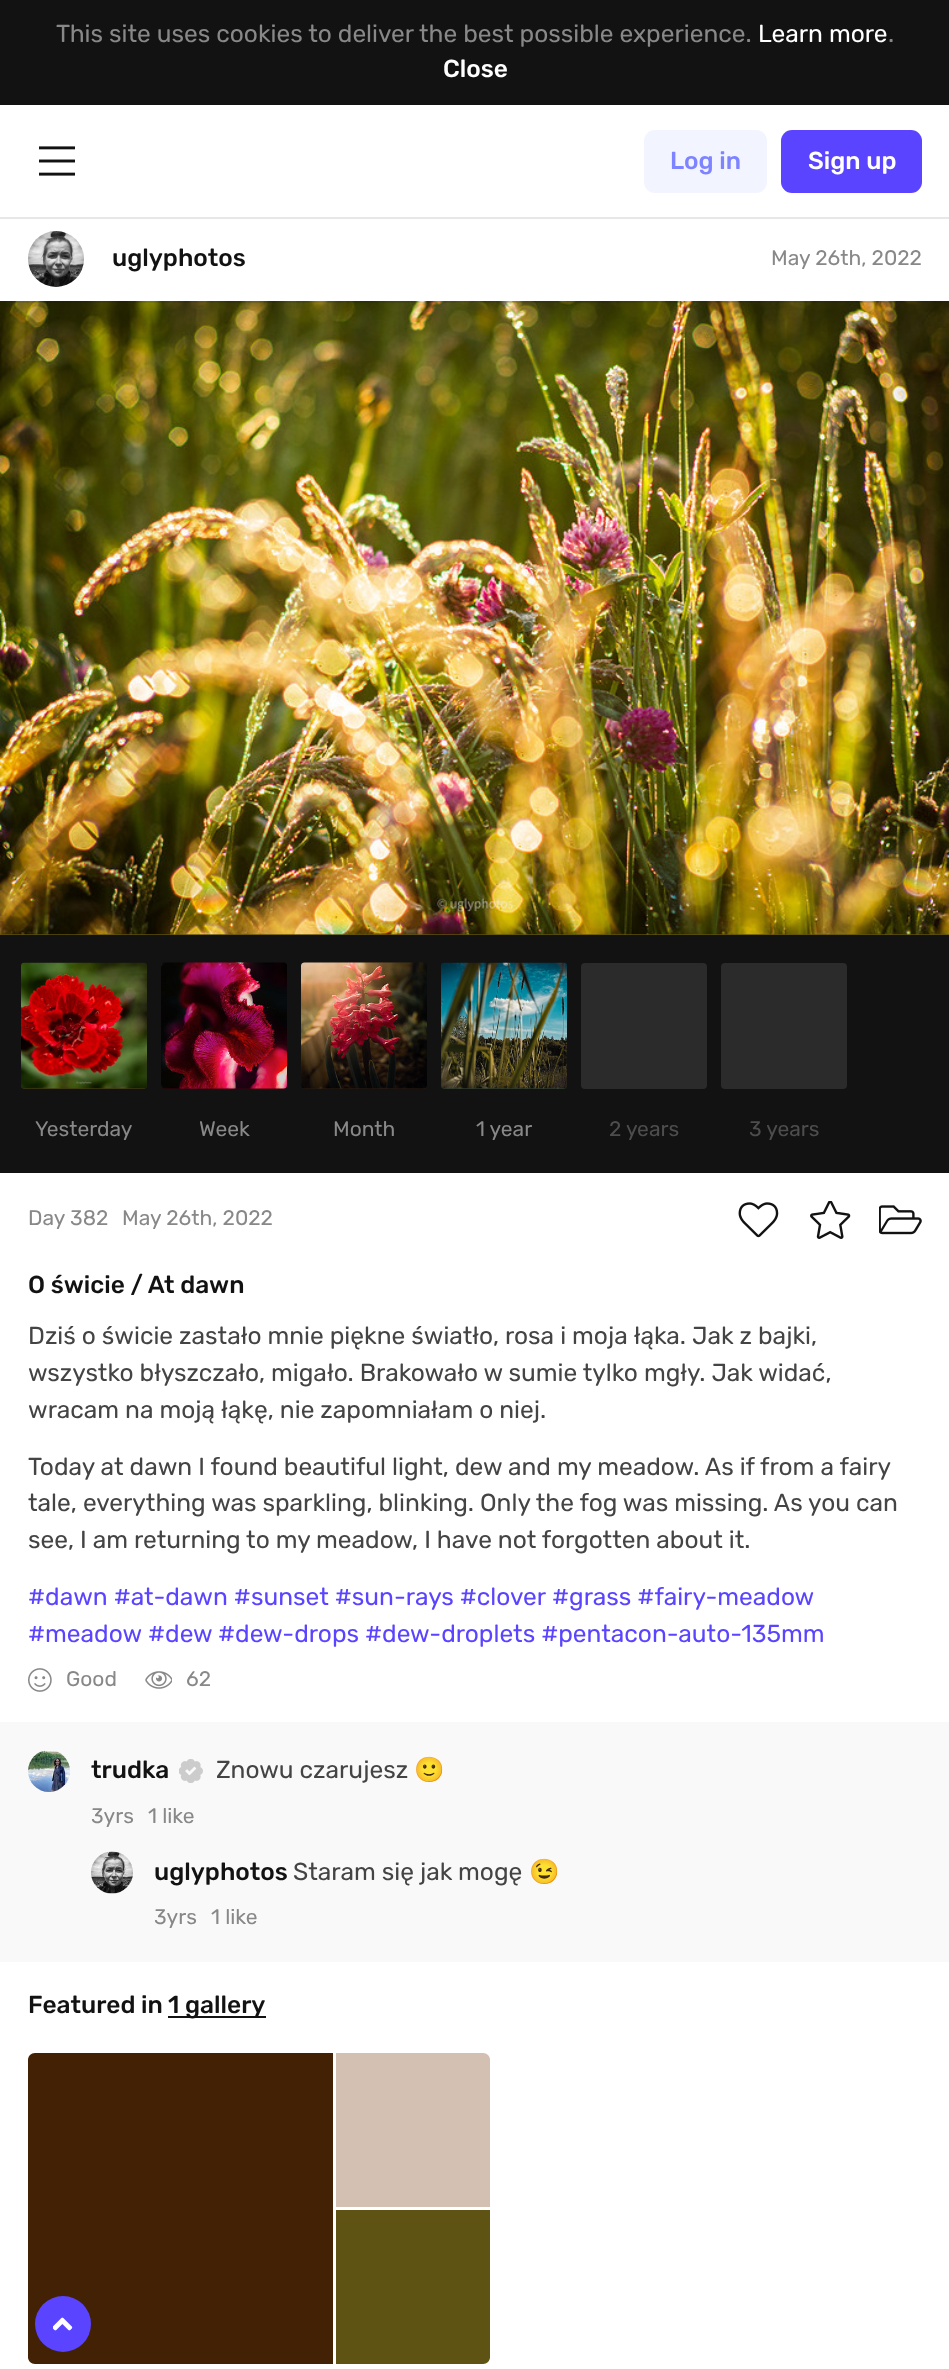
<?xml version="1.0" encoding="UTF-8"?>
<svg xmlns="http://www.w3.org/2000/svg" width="949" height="2369">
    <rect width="100%" height="100%" fill="#FFFFFF"/>
    <rect x="0" y="0" width="949" height="105" fill="#121212"/>
    <text x="56" y="42" font-family="Rubik" font-size="24.5" fill="#888888">This site uses cookies to deliver the best possible experience.</text>
    <text x="758" y="42" font-family="Rubik" font-size="24.5" fill="#FFFFFF">Learn more</text>
    <text x="888" y="42" font-family="Rubik" font-size="24.5" fill="#888888">.</text>
    <text x="443" y="77" font-family="Rubik" font-size="24.5" font-weight="500" fill="#FFFFFF">Close</text>
    <rect x="0" y="217" width="949" height="2" fill="#E7E7E7"/>
    <image x="39" y="146" width="36" height="30" href="img_01.png"/>
    <rect x="644" y="130" width="123" height="63" rx="11" fill="#F2F4FF"/>
    <text x="670" y="169" font-family="Rubik" font-size="24.5" font-weight="500" fill="#7E84FF">Log in</text>
    <rect x="781" y="130" width="141" height="63" rx="11" fill="#5A44FF"/>
    <text x="808" y="169" font-family="Rubik" font-size="24.5" font-weight="500" fill="#FFFFFF">Sign up</text>
    <rect x="0" y="934" width="949" height="1" fill="#5D5211"/>
    <image x="0" y="301" width="949" height="634" href="img_03.png"/>
    <rect x="9" y="301" width="919" height="2" fill="#121212" fill-opacity="0.1"/>
    <circle cx="56" cy="259" r="28" fill="#F5F5F5"/>
    <image x="28" y="231" width="56" height="56" href="img_02.png"/>
    <text x="112" y="266" font-family="Rubik" font-size="24.5" font-weight="500" fill="#121212">uglyphotos</text>
    <text x="771" y="265" font-family="Rubik" font-size="21" fill="#888888">May 26th, 2022</text>
    <rect x="0" y="935" width="949" height="238" fill="#121212"/>
    <rect x="21" y="963" width="126" height="126" rx="4" fill="#3E3713"/>
    <image x="21" y="962" width="126" height="127" href="img_04.png"/>
    <text x="35" y="1136" font-family="Rubik" font-size="21" fill="#888888">Yesterday</text>
    <rect x="161" y="963" width="126" height="126" rx="4" fill="#3A0713"/>
    <image x="161" y="962" width="126" height="127" href="img_05.png"/>
    <text x="199" y="1136" font-family="Rubik" font-size="21" fill="#888888">Week</text>
    <rect x="301" y="963" width="126" height="126" rx="4" fill="#311F15"/>
    <image x="301" y="962" width="126" height="127" href="img_06.png"/>
    <text x="333" y="1136" font-family="Rubik" font-size="21" fill="#888888">Month</text>
    <rect x="441" y="963" width="126" height="126" rx="4" fill="#2E3B2F"/>
    <image x="441" y="962" width="126" height="127" href="img_07.png"/>
    <text x="476" y="1136" font-family="Rubik" font-size="21" fill="#888888">1 year</text>
    <rect x="581" y="963" width="126" height="126" rx="4" fill="#2B2B2B"/>
    <text x="609" y="1136" font-family="Rubik" font-size="21" fill="#4D4D4D">2 years</text>
    <rect x="721" y="963" width="126" height="126" rx="4" fill="#2B2B2B"/>
    <text x="749" y="1136" font-family="Rubik" font-size="21" fill="#4D4D4D">3 years</text>
    <text x="28" y="1225" font-family="Rubik" font-size="21" fill="#888888">Day 382</text>
    <text x="122" y="1225" font-family="Rubik" font-size="21" fill="#888888">May 26th, 2022</text>
    <image x="738" y="1202" width="41" height="36" href="img_08.png"/>
    <image x="810" y="1201" width="41" height="38" href="img_09.png"/>
    <image x="879" y="1205" width="43" height="30" href="img_10.png"/>
    <text x="28" y="1293" font-family="Rubik" font-size="24.5" font-weight="500" fill="#121212">O świcie / At dawn</text>
    <text font-family="Rubik" font-size="24.5" fill="#444444">
        <tspan x="28" y="1344">Dziś o świcie zastało mnie piękne światło, rosa i moja łąka. Jak z bajki,</tspan>
        <tspan x="28" y="1381">wszystko błyszczało, migało. Brakowało w sumie tylko mgły. Jak widać,</tspan>
        <tspan x="28" y="1418">wracam na moją łąkę, nie zapomniałam o niej.</tspan>
    </text>
    <text font-family="Rubik" font-size="24.5" fill="#444444">
        <tspan x="28" y="1475">Today at dawn I found beautiful light, dew and my meadow. As if from a fairy</tspan>
        <tspan x="28" y="1511">tale, everything was sparkling, blinking. Only the fog was missing. As you can</tspan>
        <tspan x="28" y="1548">see, I am returning to my meadow, I have not forgotten about it.</tspan>
    </text>
    <text x="28" y="1605" font-family="Rubik" font-size="24.5" fill="#5A44FF">#dawn #at-dawn #sunset #sun-rays #clover</text>
    <text x="552" y="1605" font-family="Rubik" font-size="24.5" fill="#5A44FF">#grass #fairy-meadow</text>
    <text x="28" y="1642" font-family="Rubik" font-size="24.5" fill="#5A44FF">#meadow</text>
    <text x="148" y="1642" font-family="Rubik" font-size="24.5" fill="#5A44FF">#dew</text>
    <text x="218" y="1642" font-family="Rubik" font-size="24.5" fill="#5A44FF">#dew-drops #dew-droplets #pentacon-auto-135mm</text>
    <image x="28" y="1668" width="24" height="24" href="img_11.png"/>
    <text x="66" y="1686" font-family="Rubik" font-size="21" fill="#888888">Good</text>
    <image x="145" y="1671" width="27" height="18" href="img_12.png"/>
    <text x="186" y="1686" font-family="Rubik" font-size="21" fill="#888888">62</text>
    <rect x="0" y="1722" width="949" height="240" fill="#F9F9F9"/>
    <circle cx="49" cy="1771" r="21" fill="#F5F5F5"/>
    <image x="28" y="1750" width="42" height="42" href="img_13.png"/>
    <text x="91" y="1778" font-family="Rubik" font-size="24.5" font-weight="500" fill="#121212">trudka</text>
    <image x="179" y="1759" width="24" height="24" href="img_14.png"/>
    <text x="216" y="1778" font-family="Rubik" font-size="24.5" fill="#444444">Znowu czarujesz</text>
    <text x="414" y="1778" font-family="Noto Color Emoji" font-size="24.5" fill="#444444">🙂</text>
    <text x="91" y="1823" font-family="Rubik" font-size="21" fill="#888888">3yrs</text>
    <text x="148" y="1823" font-family="Rubik" font-size="21" fill="#888888">1 like</text>
    <circle cx="112" cy="1873" r="21" fill="#F5F5F5"/>
    <image x="91" y="1851" width="42" height="43" href="img_15.png"/>
    <text x="154" y="1880" font-family="Rubik" font-size="24.5" font-weight="500" fill="#121212">uglyphotos</text>
    <text x="293" y="1880" font-family="Rubik" font-size="24.5" fill="#444444">Staram się jak mogę</text>
    <text x="529" y="1880" font-family="Noto Color Emoji" font-size="24.5" fill="#444444">😉</text>
    <text x="154" y="1924" font-family="Rubik" font-size="21" fill="#888888">3yrs</text>
    <text x="211" y="1924" font-family="Rubik" font-size="21" fill="#888888">1 like</text>
    <text x="28" y="2013" font-family="Rubik" font-size="24.5" font-weight="500" fill="#121212">Featured in</text>
    <rect x="168" y="2016" width="98" height="2" fill="#121212"/>
    <text x="168" y="2013" font-family="Rubik" font-size="24.5" font-weight="500" fill="#121212">1 gallery</text>
    <path d="M 35 2053 H 333 V 2364 H 35 C 31 2364 28 2361 28 2357 V 2060 C 28 2056 31 2053 35 2053 Z" fill="#422105"/>
    <path d="M 336 2053 H 483 C 487 2053 490 2056 490 2060 V 2207 H 336 Z" fill="#D4BFB3"/>
    <path d="M 336 2210 H 490 V 2357 C 490 2361 487 2364 483 2364 H 336 Z" fill="#5E5312"/>
    <circle cx="63" cy="2324" r="28" fill="#5A44FF"/>
    <image x="53" y="2317" width="20" height="14" href="img_16.png"/>
</svg>
